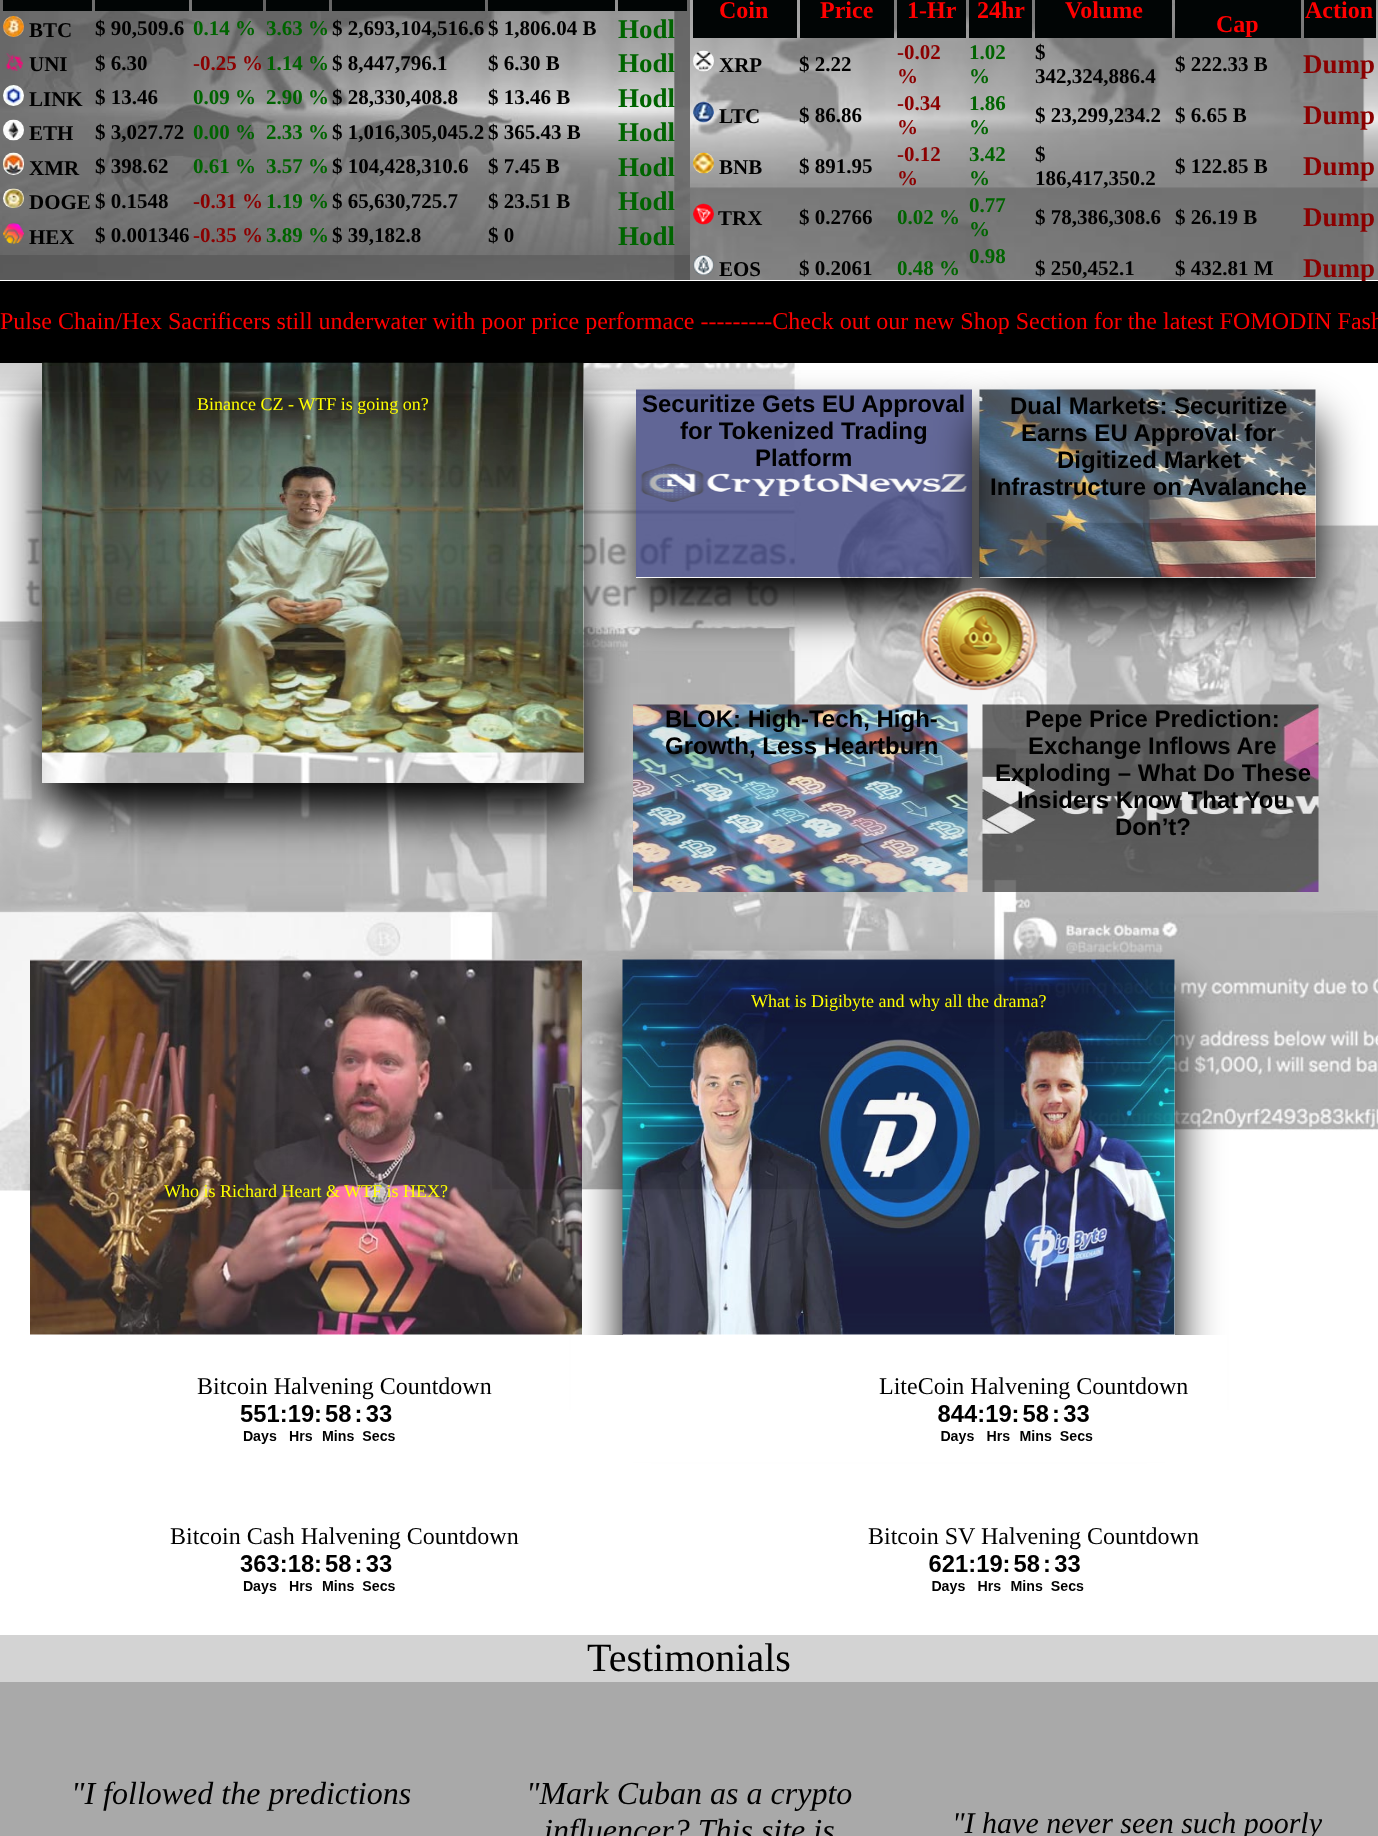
<?xml version="1.0" encoding="UTF-8"?>
<svg xmlns="http://www.w3.org/2000/svg" width="1378" height="1836">
    <defs>
        <clipPath id="clip1"><rect x="690" y="0" width="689" height="281"/></clipPath>
        <clipPath id="clip2"><path d="M 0 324 H 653 V 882 H 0 Z M 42 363 H 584 V 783 H 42 Z" clip-rule="evenodd"/></clipPath>
        <filter id="blur1" x="-50%" y="-200%" width="200%" height="500%"><feGaussianBlur stdDeviation="22.5"/></filter>
        <clipPath id="clip3"><path d="M 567 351 H 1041 V 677 H 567 Z M 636 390 H 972 V 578 H 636 Z" clip-rule="evenodd"/></clipPath>
        <clipPath id="clip4"><path d="M 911 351 H 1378 V 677 H 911 Z M 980 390 H 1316 V 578 H 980 Z" clip-rule="evenodd"/></clipPath>
        <clipPath id="clip5"><path d="M 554 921 H 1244 V 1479 H 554 Z M 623 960 H 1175 V 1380 H 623 Z" clip-rule="evenodd"/></clipPath>
    </defs>
    <rect width="100%" height="100%" fill="#FFFFFF"/>
    <image x="0" y="363" width="1378" height="828" href="img_01.png"/>
    <image x="0" y="0" width="690" height="280" href="img_02.png"/>
    <rect x="3" y="0" width="89" height="11" fill="#010505"/>
    <rect x="95" y="0" width="94" height="11" fill="#010505"/>
    <rect x="192" y="0" width="71" height="11" fill="#010505"/>
    <rect x="266" y="0" width="63" height="11" fill="#010505"/>
    <rect x="332" y="0" width="153" height="11" fill="#010505"/>
    <rect x="488" y="0" width="127" height="11" fill="#010505"/>
    <rect x="618" y="0" width="69" height="11" fill="#010505"/>
    <image x="3" y="16" width="21" height="21" href="img_03.png"/>
    <text x="29" y="37" font-family="Liberation Serif" font-size="21" font-weight="700" fill="#000000">BTC</text>
    <text x="95" y="35" font-family="Liberation Serif" font-size="21" font-weight="700" fill="#000000">$ 90,509.6</text>
    <text x="193" y="35" font-family="Liberation Serif" font-size="21" font-weight="700" fill="#006400">0.14 %</text>
    <text x="266" y="35" font-family="Liberation Serif" font-size="21" font-weight="700" fill="#006400">3.63 %</text>
    <text x="332" y="35" font-family="Liberation Serif" font-size="21" font-weight="700" fill="#000000">$ 2,693,104,516.6</text>
    <text x="488" y="35" font-family="Liberation Serif" font-size="21" font-weight="700" fill="#000000">$ 1,806.04 B</text>
    <text x="618" y="38" font-family="Liberation Serif" font-size="27" font-weight="700" fill="#006400">Hodl</text>
    <image x="6" y="53" width="17" height="19" href="img_04.png"/>
    <text x="29" y="71" font-family="Liberation Serif" font-size="21" font-weight="700" fill="#000000">UNI</text>
    <text x="95" y="70" font-family="Liberation Serif" font-size="21" font-weight="700" fill="#000000">$ 6.30</text>
    <text x="193" y="70" font-family="Liberation Serif" font-size="21" font-weight="700" fill="#8B0000">-0.25 %</text>
    <text x="266" y="70" font-family="Liberation Serif" font-size="21" font-weight="700" fill="#006400">1.14 %</text>
    <text x="332" y="70" font-family="Liberation Serif" font-size="21" font-weight="700" fill="#000000">$ 8,447,796.1</text>
    <text x="488" y="70" font-family="Liberation Serif" font-size="21" font-weight="700" fill="#000000">$ 6.30 B</text>
    <text x="618" y="72" font-family="Liberation Serif" font-size="27" font-weight="700" fill="#006400">Hodl</text>
    <image x="3" y="85" width="21" height="21" href="img_05.png"/>
    <text x="29" y="106" font-family="Liberation Serif" font-size="21" font-weight="700" fill="#000000">LINK</text>
    <text x="95" y="104" font-family="Liberation Serif" font-size="21" font-weight="700" fill="#000000">$ 13.46</text>
    <text x="193" y="104" font-family="Liberation Serif" font-size="21" font-weight="700" fill="#006400">0.09 %</text>
    <text x="266" y="104" font-family="Liberation Serif" font-size="21" font-weight="700" fill="#006400">2.90 %</text>
    <text x="332" y="104" font-family="Liberation Serif" font-size="21" font-weight="700" fill="#000000">$ 28,330,408.8</text>
    <text x="488" y="104" font-family="Liberation Serif" font-size="21" font-weight="700" fill="#000000">$ 13.46 B</text>
    <text x="618" y="107" font-family="Liberation Serif" font-size="27" font-weight="700" fill="#006400">Hodl</text>
    <image x="3" y="119" width="21" height="22" href="img_06.png"/>
    <text x="29" y="140" font-family="Liberation Serif" font-size="21" font-weight="700" fill="#000000">ETH</text>
    <text x="95" y="139" font-family="Liberation Serif" font-size="21" font-weight="700" fill="#000000">$ 3,027.72</text>
    <text x="193" y="139" font-family="Liberation Serif" font-size="21" font-weight="700" fill="#006400">0.00 %</text>
    <text x="266" y="139" font-family="Liberation Serif" font-size="21" font-weight="700" fill="#006400">2.33 %</text>
    <text x="332" y="139" font-family="Liberation Serif" font-size="21" font-weight="700" fill="#000000">$ 1,016,305,045.2</text>
    <text x="488" y="139" font-family="Liberation Serif" font-size="21" font-weight="700" fill="#000000">$ 365.43 B</text>
    <text x="618" y="141" font-family="Liberation Serif" font-size="27" font-weight="700" fill="#006400">Hodl</text>
    <image x="3" y="152" width="21" height="23" href="img_07.png"/>
    <text x="29" y="175" font-family="Liberation Serif" font-size="21" font-weight="700" fill="#000000">XMR</text>
    <text x="95" y="173" font-family="Liberation Serif" font-size="21" font-weight="700" fill="#000000">$ 398.62</text>
    <text x="193" y="173" font-family="Liberation Serif" font-size="21" font-weight="700" fill="#006400">0.61 %</text>
    <text x="266" y="173" font-family="Liberation Serif" font-size="21" font-weight="700" fill="#006400">3.57 %</text>
    <text x="332" y="173" font-family="Liberation Serif" font-size="21" font-weight="700" fill="#000000">$ 104,428,310.6</text>
    <text x="488" y="173" font-family="Liberation Serif" font-size="21" font-weight="700" fill="#000000">$ 7.45 B</text>
    <text x="618" y="176" font-family="Liberation Serif" font-size="27" font-weight="700" fill="#006400">Hodl</text>
    <image x="3" y="188" width="21" height="20" href="img_08.png"/>
    <text x="29" y="209" font-family="Liberation Serif" font-size="21" font-weight="700" fill="#000000">DOGE</text>
    <text x="95" y="208" font-family="Liberation Serif" font-size="21" font-weight="700" fill="#000000">$ 0.1548</text>
    <text x="193" y="208" font-family="Liberation Serif" font-size="21" font-weight="700" fill="#8B0000">-0.31 %</text>
    <text x="266" y="208" font-family="Liberation Serif" font-size="21" font-weight="700" fill="#006400">1.19 %</text>
    <text x="332" y="208" font-family="Liberation Serif" font-size="21" font-weight="700" fill="#000000">$ 65,630,725.7</text>
    <text x="488" y="208" font-family="Liberation Serif" font-size="21" font-weight="700" fill="#000000">$ 23.51 B</text>
    <text x="618" y="210" font-family="Liberation Serif" font-size="27" font-weight="700" fill="#006400">Hodl</text>
    <image x="3" y="223" width="21" height="21" href="img_09.png"/>
    <text x="29" y="244" font-family="Liberation Serif" font-size="21" font-weight="700" fill="#000000">HEX</text>
    <text x="95" y="242" font-family="Liberation Serif" font-size="21" font-weight="700" fill="#000000">$ 0.001346</text>
    <text x="193" y="242" font-family="Liberation Serif" font-size="21" font-weight="700" fill="#8B0000">-0.35 %</text>
    <text x="266" y="242" font-family="Liberation Serif" font-size="21" font-weight="700" fill="#006400">3.89 %</text>
    <text x="332" y="242" font-family="Liberation Serif" font-size="21" font-weight="700" fill="#000000">$ 39,182.8</text>
    <text x="488" y="242" font-family="Liberation Serif" font-size="21" font-weight="700" fill="#000000">$ 0</text>
    <text x="618" y="245" font-family="Liberation Serif" font-size="27" font-weight="700" fill="#006400">Hodl</text>
    <image x="690" y="0" width="688" height="280" href="img_10.png"/>
    <rect x="693" y="0" width="104" height="38" fill="#010505"/>
    <text x="719" y="18" font-family="Liberation Serif" font-size="24" font-weight="700" fill="#FF0000">Coin</text>
    <rect x="800" y="0" width="94" height="38" fill="#010505"/>
    <text x="820" y="18" font-family="Liberation Serif" font-size="24" font-weight="700" fill="#FF0000">Price</text>
    <rect x="897" y="0" width="69" height="38" fill="#010505"/>
    <text x="907" y="18" font-family="Liberation Serif" font-size="24" font-weight="700" fill="#FF0000">1-Hr</text>
    <rect x="969" y="0" width="63" height="38" fill="#010505"/>
    <text x="977" y="18" font-family="Liberation Serif" font-size="24" font-weight="700" fill="#FF0000">24hr</text>
    <rect x="1035" y="0" width="137" height="38" fill="#010505"/>
    <text x="1065" y="18" font-family="Liberation Serif" font-size="24" font-weight="700" fill="#FF0000">Volume</text>
    <rect x="1304" y="0" width="72" height="38" fill="#010505"/>
    <text x="1305" y="18" font-family="Liberation Serif" font-size="24" font-weight="700" fill="#FF0000">Action</text>
    <rect x="1175" y="0" width="126" height="38" fill="#010505"/>
    <text x="1216" y="32" font-family="Liberation Serif" font-size="24" font-weight="700" fill="#FF0000">Cap</text>
    <image x="693" y="50" width="21" height="22" href="img_11.png"/>
    <text x="719" y="72" font-family="Liberation Serif" font-size="21" font-weight="700" fill="#000000">XRP</text>
    <text x="799" y="71" font-family="Liberation Serif" font-size="21" font-weight="700" fill="#000000">$ 2.22</text>
    <text font-family="Liberation Serif" font-size="21" font-weight="700" fill="#8B0000">
        <tspan x="897" y="59">-0.02</tspan>
        <tspan x="897" y="83">%</tspan>
    </text>
    <text font-family="Liberation Serif" font-size="21" font-weight="700" fill="#006400">
        <tspan x="969" y="59">1.02</tspan>
        <tspan x="969" y="83">%</tspan>
    </text>
    <text font-family="Liberation Serif" font-size="21" font-weight="700" fill="#000000">
        <tspan x="1035" y="59">$</tspan>
        <tspan x="1035" y="83">342,324,886.4</tspan>
    </text>
    <text x="1175" y="71" font-family="Liberation Serif" font-size="21" font-weight="700" fill="#000000">$ 222.33 B</text>
    <text x="1303" y="73" font-family="Liberation Serif" font-size="27" font-weight="700" fill="#8B0000">Dump</text>
    <image x="693" y="101" width="21" height="22" href="img_12.png"/>
    <text x="719" y="123" font-family="Liberation Serif" font-size="21" font-weight="700" fill="#000000">LTC</text>
    <text x="799" y="122" font-family="Liberation Serif" font-size="21" font-weight="700" fill="#000000">$ 86.86</text>
    <text font-family="Liberation Serif" font-size="21" font-weight="700" fill="#8B0000">
        <tspan x="897" y="110">-0.34</tspan>
        <tspan x="897" y="134">%</tspan>
    </text>
    <text font-family="Liberation Serif" font-size="21" font-weight="700" fill="#006400">
        <tspan x="969" y="110">1.86</tspan>
        <tspan x="969" y="134">%</tspan>
    </text>
    <text x="1035" y="122" font-family="Liberation Serif" font-size="21" font-weight="700" fill="#000000">$ 23,299,234.2</text>
    <text x="1175" y="122" font-family="Liberation Serif" font-size="21" font-weight="700" fill="#000000">$ 6.65 B</text>
    <text x="1303" y="124" font-family="Liberation Serif" font-size="27" font-weight="700" fill="#8B0000">Dump</text>
    <image x="693" y="152" width="21" height="22" href="img_13.png"/>
    <text x="719" y="174" font-family="Liberation Serif" font-size="21" font-weight="700" fill="#000000">BNB</text>
    <text x="799" y="173" font-family="Liberation Serif" font-size="21" font-weight="700" fill="#000000">$ 891.95</text>
    <text font-family="Liberation Serif" font-size="21" font-weight="700" fill="#8B0000">
        <tspan x="897" y="161">-0.12</tspan>
        <tspan x="897" y="185">%</tspan>
    </text>
    <text font-family="Liberation Serif" font-size="21" font-weight="700" fill="#006400">
        <tspan x="969" y="161">3.42</tspan>
        <tspan x="969" y="185">%</tspan>
    </text>
    <text font-family="Liberation Serif" font-size="21" font-weight="700" fill="#000000">
        <tspan x="1035" y="161">$</tspan>
        <tspan x="1035" y="185">186,417,350.2</tspan>
    </text>
    <text x="1175" y="173" font-family="Liberation Serif" font-size="21" font-weight="700" fill="#000000">$ 122.85 B</text>
    <text x="1303" y="175" font-family="Liberation Serif" font-size="27" font-weight="700" fill="#8B0000">Dump</text>
    <image x="693" y="203" width="21" height="22" href="img_14.png"/>
    <text x="718" y="225" font-family="Liberation Serif" font-size="21" font-weight="700" fill="#000000">TRX</text>
    <text x="799" y="224" font-family="Liberation Serif" font-size="21" font-weight="700" fill="#000000">$ 0.2766</text>
    <text x="897" y="224" font-family="Liberation Serif" font-size="21" font-weight="700" fill="#006400">0.02 %</text>
    <text font-family="Liberation Serif" font-size="21" font-weight="700" fill="#006400">
        <tspan x="969" y="212">0.77</tspan>
        <tspan x="969" y="236">%</tspan>
    </text>
    <text x="1035" y="224" font-family="Liberation Serif" font-size="21" font-weight="700" fill="#000000">$ 78,386,308.6</text>
    <text x="1175" y="224" font-family="Liberation Serif" font-size="21" font-weight="700" fill="#000000">$ 26.19 B</text>
    <text x="1303" y="226" font-family="Liberation Serif" font-size="27" font-weight="700" fill="#8B0000">Dump</text>
    <text x="969" y="263" font-family="Liberation Serif" font-size="21" font-weight="700" fill="#006400">0.98</text>
    <image x="693" y="255" width="21" height="20" href="img_15.png"/>
    <text x="719" y="276" font-family="Liberation Serif" font-size="21" font-weight="700" fill="#000000">EOS</text>
    <text x="799" y="275" font-family="Liberation Serif" font-size="21" font-weight="700" fill="#000000">$ 0.2061</text>
    <text x="897" y="275" font-family="Liberation Serif" font-size="21" font-weight="700" fill="#006400">0.48 %</text>
    <text x="1035" y="275" font-family="Liberation Serif" font-size="21" font-weight="700" fill="#000000">$ 250,452.1</text>
    <text x="1175" y="275" font-family="Liberation Serif" font-size="21" font-weight="700" fill="#000000">$ 432.81 M</text>
    <g clip-path="url(#clip1)">
        <text x="1303" y="277" font-family="Liberation Serif" font-size="27" font-weight="700" fill="#8B0000">Dump</text>
    </g>
    <rect x="0" y="281" width="1378" height="82" fill="#000000"/>
    <text x="0" y="329" font-family="Liberation Serif" font-size="24" fill="#FF0000">Pulse Chain/Hex Sacrificers still underwater with poor price performace ---------Check out our new Shop Section for the latest FOMODIN Fash</text>
    <g clip-path="url(#clip2)">
        <rect x="42" y="393" width="542" height="420" fill="#020000" filter="url(#blur1)"/>
    </g>
    <image x="42" y="362" width="542" height="391" href="img_16.png"/>
    <text x="197" y="410" font-family="Liberation Serif" font-size="18" fill="#FFFF00">Binance CZ - WTF is going on?</text>
    <g clip-path="url(#clip3)">
        <rect x="636" y="420" width="336" height="188" fill="#020000" filter="url(#blur1)"/>
    </g>
    <image x="636" y="389" width="336" height="188" href="img_17.png"/>
    <g clip-path="url(#clip4)">
        <rect x="980" y="420" width="336" height="188" fill="#020000" filter="url(#blur1)"/>
    </g>
    <text x="642" y="412" font-family="Liberation Sans" font-size="24" font-weight="700" fill="#000000">Securitize Gets EU Approval</text>
    <text x="680" y="439" font-family="Liberation Sans" font-size="24" font-weight="700" fill="#000000">for Tokenized Trading</text>
    <text x="755" y="466" font-family="Liberation Sans" font-size="24" font-weight="700" fill="#000000">Platform</text>
    <image x="979" y="389" width="337" height="188" href="img_18.png"/>
    <text x="1010" y="414" font-family="Liberation Sans" font-size="24" font-weight="700" fill="#000000">Dual Markets: Securitize</text>
    <text x="1021" y="441" font-family="Liberation Sans" font-size="24" font-weight="700" fill="#000000">Earns EU Approval for</text>
    <text x="1057" y="468" font-family="Liberation Sans" font-size="24" font-weight="700" fill="#000000">Digitized Market</text>
    <text x="990" y="495" font-family="Liberation Sans" font-size="24" font-weight="700" fill="#000000">Infrastructure on Avalanche</text>
    <image x="919" y="587" width="119" height="104" href="img_19.png"/>
    <image x="937" y="596" width="87" height="86" href="img_20.png"/>
    <image x="633" y="704" width="335" height="188" href="img_21.png"/>
    <text font-family="Liberation Sans" font-size="24" font-weight="700" fill="#000000">
        <tspan x="665" y="727">BLOK: High-Tech, High-</tspan>
        <tspan x="665" y="754">Growth, Less Heartburn</tspan>
    </text>
    <image x="982" y="704" width="337" height="188" href="img_22.png"/>
    <text x="1025" y="727" font-family="Liberation Sans" font-size="24" font-weight="700" fill="#000000">Pepe Price Prediction:</text>
    <text x="1028" y="754" font-family="Liberation Sans" font-size="24" font-weight="700" fill="#000000">Exchange Inflows Are</text>
    <text x="995" y="781" font-family="Liberation Sans" font-size="24" font-weight="700" fill="#000000">Exploding – What Do These</text>
    <text x="1017" y="808" font-family="Liberation Sans" font-size="24" font-weight="700" fill="#000000">Insiders Know That You</text>
    <text x="1115" y="835" font-family="Liberation Sans" font-size="24" font-weight="700" fill="#000000">Don’t?</text>
    <image x="30" y="959" width="552" height="376" href="img_24.png"/>
    <g clip-path="url(#clip5)">
        <rect x="623" y="990" width="552" height="420" fill="#020000" filter="url(#blur1)"/>
    </g>
    <image x="622" y="959" width="553" height="376" href="img_23.png"/>
    <text x="751" y="1007" font-family="Liberation Serif" font-size="18" fill="#FFFF00">What is Digibyte and why all the drama?</text>
    <text x="164" y="1197" font-family="Liberation Serif" font-size="18" fill="#FFFF00">Who is Richard Heart &amp; WTF is HEX?</text>
    <rect x="571" y="1335" width="656" height="127" fill="#FFFFFF"/>
    <text x="197" y="1394" font-family="Liberation Serif" font-size="24" fill="#000000">Bitcoin Halvening Countdown</text>
    <image x="240" y="1405" width="155" height="39" href="img_25.png"/>
    <text x="879" y="1394" font-family="Liberation Serif" font-size="24" fill="#000000">LiteCoin Halvening Countdown</text>
    <image x="938" y="1405" width="155" height="39" href="img_26.png"/>
    <text x="170" y="1544" font-family="Liberation Serif" font-size="24" fill="#000000">Bitcoin Cash Halvening Countdown</text>
    <image x="240" y="1555" width="155" height="39" href="img_27.png"/>
    <text x="868" y="1544" font-family="Liberation Serif" font-size="24" fill="#000000">Bitcoin SV Halvening Countdown</text>
    <image x="929" y="1555" width="155" height="39" href="img_28.png"/>
    <rect x="0" y="1635" width="1378" height="47" fill="#D3D3D3"/>
    <text x="587" y="1671" font-family="Liberation Serif" font-size="40" fill="#000000">Testimonials</text>
    <rect x="0" y="1682" width="1378" height="154" fill="#A9A9A9"/>
    <text x="71" y="1804" font-family="Liberation Serif" font-size="32" font-style="italic" fill="#000000">"I followed the predictions</text>
    <text x="526" y="1804" font-family="Liberation Serif" font-size="32" font-style="italic" fill="#000000">"Mark Cuban as a crypto</text>
    <text x="544" y="1841" font-family="Liberation Serif" font-size="32" font-style="italic" fill="#000000">influencer? This site is</text>
    <text x="952" y="1833" font-family="Liberation Serif" font-size="30" font-style="italic" fill="#000000">"I have never seen such poorly</text>
</svg>
